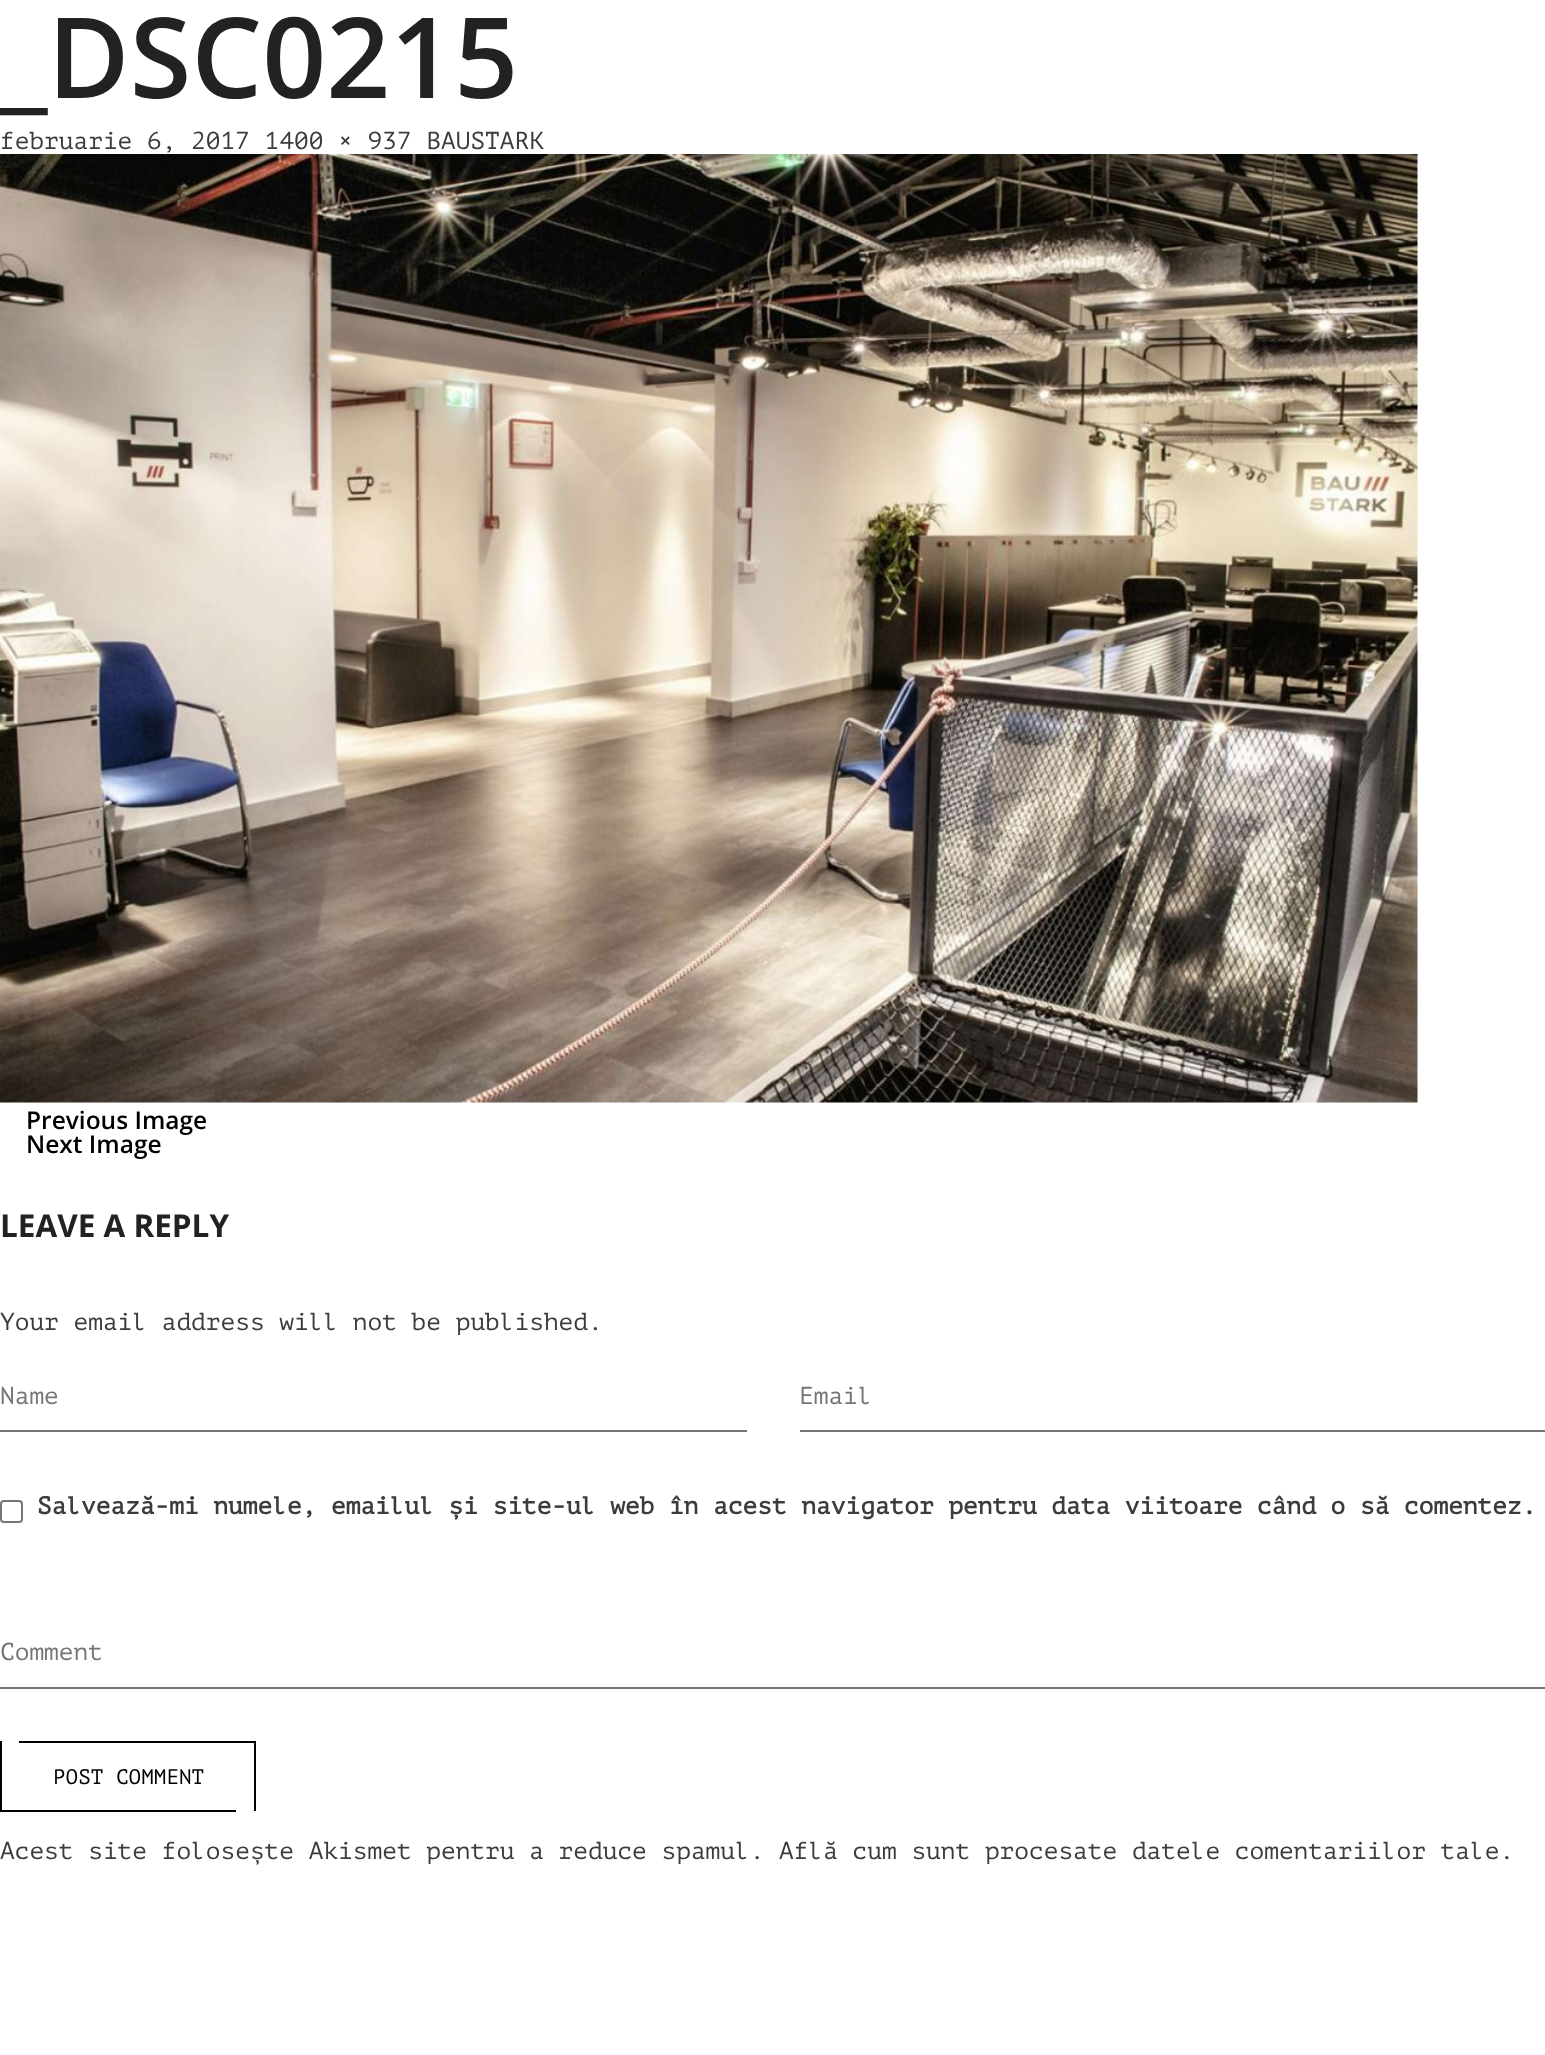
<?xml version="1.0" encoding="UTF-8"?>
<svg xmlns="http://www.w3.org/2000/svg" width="1545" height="2055">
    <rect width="100%" height="100%" fill="#FFFFFF"/>
    <text x="0" y="98" font-family="Open Sans" font-size="112" font-weight="600" fill="#222222">_DSC0215</text>
    <text x="0" y="149" font-family="PT Mono" font-size="24.5" fill="#3C3C3C">februarie 6, 2017 1400 × 937 BAUSTARK</text>
    <image x="0" y="154" width="1418" height="949" href="img_01.png"/>
    <text font-family="Open Sans" font-size="24.5" font-weight="600" fill="#000000">
        <tspan x="26" y="1129">Previous Image</tspan>
        <tspan x="26" y="1153">Next Image</tspan>
    </text>
    <text x="0" y="1237" font-family="Open Sans" font-size="31.5" font-weight="700" fill="#222222">LEAVE A REPLY</text>
    <text x="0" y="1330" font-family="PT Mono" font-size="24.5" fill="#3C3C3C">Your email address will not be published.</text>
    <text x="0" y="1404" font-family="PT Mono" font-size="24.5" fill="#757575">Name</text>
    <rect x="0" y="1430" width="747" height="2" fill="#757575"/>
    <text x="799" y="1404" font-family="PT Mono" font-size="24.5" fill="#757575">Email</text>
    <rect x="800" y="1430" width="745" height="2" fill="#757575"/>
    <rect x="1" y="1501" width="21" height="21" rx="3" fill="none" stroke="#767676" stroke-width="2"/>
    <text x="37" y="1514" font-family="PT Mono" font-size="24.5" font-weight="700" fill="#3C3C3C">Salvează-mi numele, emailul și site-ul web în acest navigator pentru data viitoare când o să comentez.</text>
    <text x="0" y="1660" font-family="PT Mono" font-size="24.5" fill="#757575">Comment</text>
    <rect x="0" y="1687" width="1545" height="2" fill="#757575"/>
    <rect x="0" y="1810" width="236" height="2" fill="#000000"/>
    <rect x="0" y="1741" width="2" height="70" fill="#000000"/>
    <rect x="19" y="1741" width="237" height="2" fill="#000000"/>
    <rect x="254" y="1741" width="2" height="70" fill="#000000"/>
    <text x="53" y="1784" font-family="PT Mono" font-size="21" fill="#000000">POST COMMENT</text>
    <text x="0" y="1859" font-family="PT Mono" font-size="24.5" fill="#3C3C3C">Acest site folosește Akismet pentru a reduce spamul. Află cum sunt procesate datele comentariilor tale.</text>
</svg>
